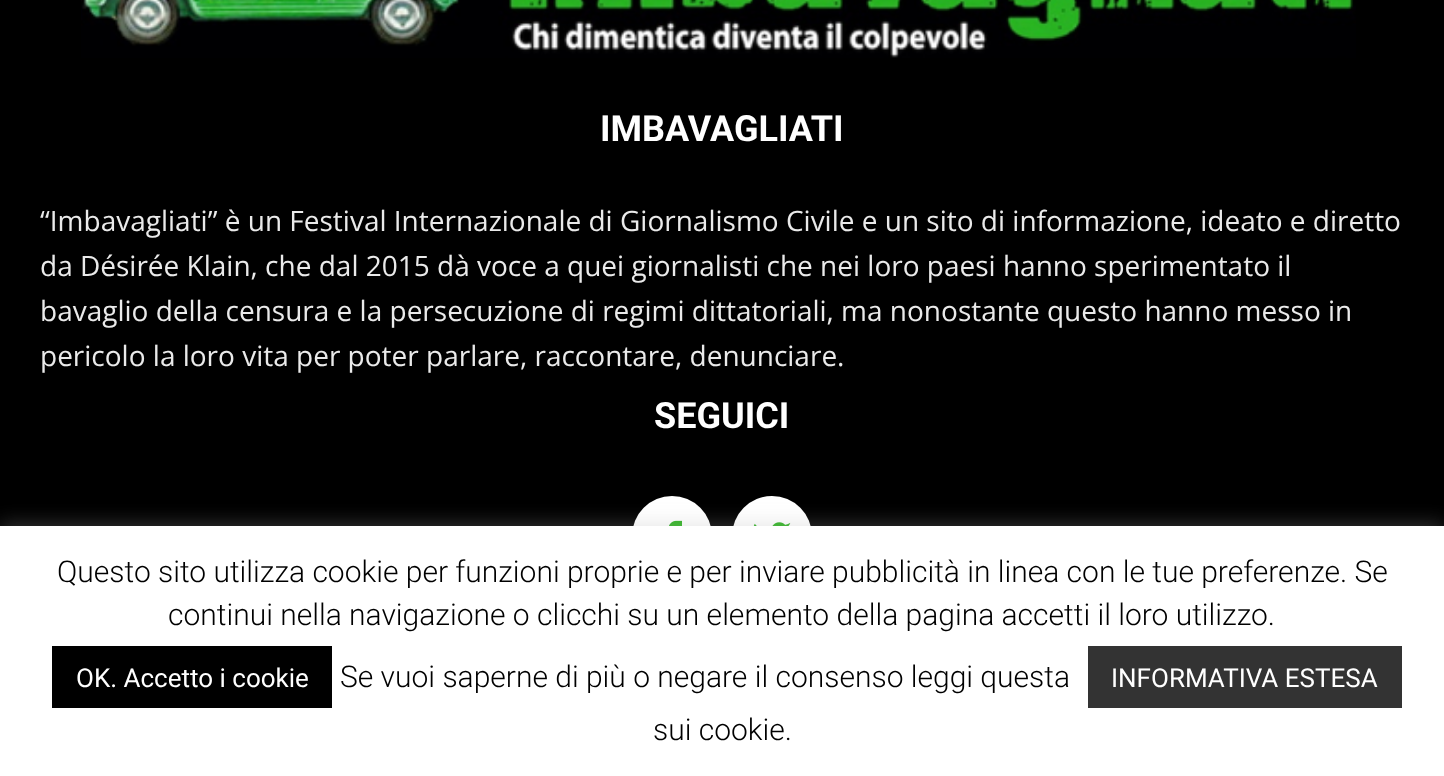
<?xml version="1.0" encoding="UTF-8"?>
<svg xmlns="http://www.w3.org/2000/svg" width="1444" height="776">
    <defs>
        <filter id="blur1" x="-50%" y="-200%" width="200%" height="500%"><feGaussianBlur stdDeviation="10"/></filter>
    </defs>
    <rect width="100%" height="100%" fill="#000000"/>
    <image x="81" y="0" width="1275" height="58" href="img_01.png"/>
    <text x="600" y="141" font-family="Roboto" font-size="36" font-weight="700" fill="#FFFFFF">IMBAVAGLIATI</text>
    <text font-family="Open Sans" font-size="28" fill="#EAEAEA">
        <tspan x="40" y="231">“Imbavagliati” è un Festival Internazionale di Giornalismo Civile e un sito di informazione, ideato e diretto</tspan>
        <tspan x="40" y="276">da Désirée Klain, che dal 2015 dà voce a quei giornalisti che nei loro paesi hanno sperimentato il</tspan>
        <tspan x="40" y="321">bavaglio della censura e la persecuzione di regimi dittatoriali, ma nonostante questo hanno messo in</tspan>
        <tspan x="40" y="366">pericolo la loro vita per poter parlare, raccontare, denunciare.</tspan>
    </text>
    <text x="654" y="428" font-family="Roboto" font-size="36" font-weight="700" fill="#FFFFFF">SEGUICI</text>
    <circle cx="672" cy="536" r="40" fill="#FFFFFF"/>
    <image x="669" y="520" width="13" height="6" href="img_02.png"/>
    <circle cx="772" cy="536" r="40" fill="#FFFFFF"/>
    <image x="753" y="522" width="38" height="4" href="img_03.png"/>
    <rect x="0" y="524" width="1444" height="250" fill="#ACABAB" fill-opacity="0.3" filter="url(#blur1)"/>
    <rect x="0" y="526" width="1444" height="250" fill="#FFFFFF"/>
    <text x="57" y="582" font-family="Roboto" font-size="30" font-weight="300" fill="#000000">Questo sito utilizza cookie per funzioni proprie e per inviare pubblicità in linea con le tue preferenze. Se</text>
    <text x="168" y="625" font-family="Roboto" font-size="30" font-weight="300" fill="#000000">continui nella navigazione o clicchi su un elemento della pagina accetti il loro utilizzo.</text>
    <rect x="52" y="646" width="280" height="62" fill="#000000"/>
    <text x="76" y="687" font-family="Roboto" font-size="26" fill="#FFFFFF">OK. Accetto i cookie</text>
    <text x="340" y="687" font-family="Roboto" font-size="30" font-weight="300" fill="#000000">Se vuoi saperne di più o negare il consenso leggi questa</text>
    <rect x="1088" y="646" width="314" height="62" fill="#333333"/>
    <text x="1111" y="687" font-family="Roboto" font-size="26" fill="#FFFFFF">INFORMATIVA ESTESA</text>
    <text x="653" y="740" font-family="Roboto" font-size="30" font-weight="300" fill="#000000">sui cookie.</text>
</svg>
